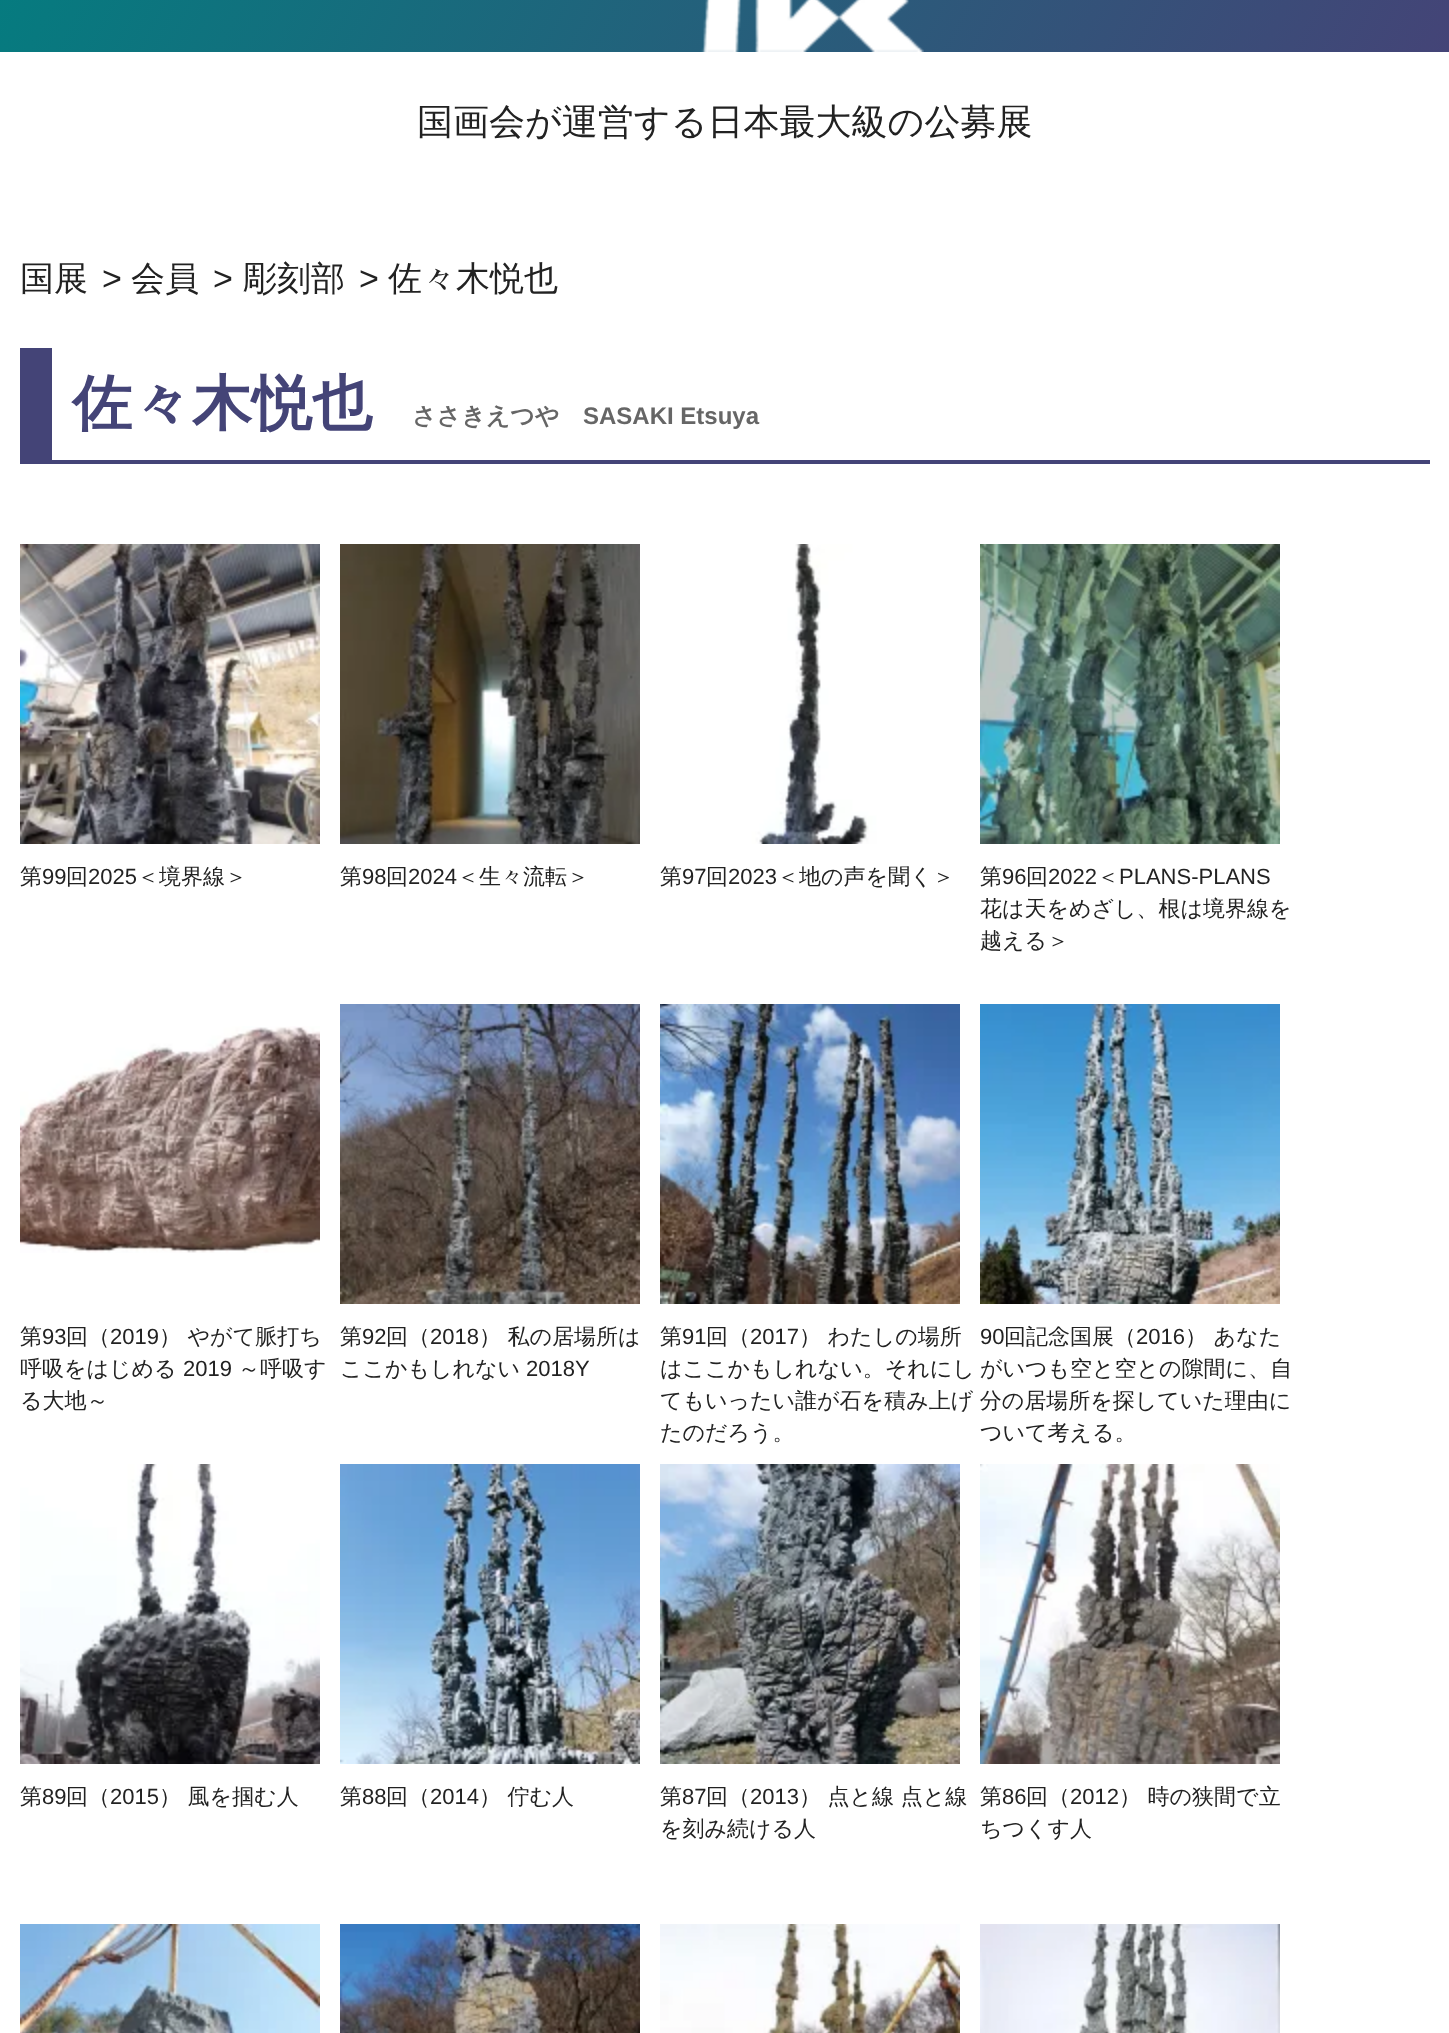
<?xml version="1.0" encoding="UTF-8"?>
<svg xmlns="http://www.w3.org/2000/svg" width="1449" height="2033">
    <defs>
        <linearGradient id="g1" gradientUnits="userSpaceOnUse" x1="1365" y1="218" x2="85" y2="-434"><stop offset="0" stop-color="#444477"/><stop offset="1" stop-color="#008080"/></linearGradient>
    </defs>
    <rect width="100%" height="100%" fill="#FFFFFF"/>
    <rect x="0" y="0" width="1449" height="52" fill="url(#g1)"/>
    <image x="701" y="0" width="223" height="52" href="img_01.png"/>
    <text x="417" y="134" font-family="WenQuanYi Zen Hei" font-size="36" font-weight="500" fill="#222222">国画会が運営する日本最大級の公募展</text>
    <text x="20" y="290" font-family="WenQuanYi Zen Hei" font-size="34" font-weight="500" fill="#222222">国展</text>
    <text x="102" y="290" font-family="Liberation Sans" font-size="34" fill="#222222">&gt;</text>
    <text x="131" y="290" font-family="WenQuanYi Zen Hei" font-size="34" font-weight="500" fill="#222222">会員</text>
    <text x="213" y="290" font-family="Liberation Sans" font-size="34" fill="#222222">&gt;</text>
    <text x="243" y="290" font-family="WenQuanYi Zen Hei" font-size="34" font-weight="500" fill="#222222">彫刻部</text>
    <text x="359" y="290" font-family="Liberation Sans" font-size="34" fill="#222222">&gt;</text>
    <text x="388" y="290" font-family="WenQuanYi Zen Hei" font-size="34" font-weight="500" fill="#222222">佐々木悦也</text>
    <rect x="52" y="460" width="1378" height="4" fill="#444477"/>
    <rect x="20" y="348" width="32" height="116" fill="#444477"/>
    <text x="72" y="424" font-family="WenQuanYi Zen Hei" font-size="60" font-weight="700" fill="#444477">佐々木悦也</text>
    <text x="412" y="424" font-family="WenQuanYi Zen Hei" font-size="24" font-weight="700" fill="#666666">ささきえつや</text>
    <text x="583" y="424" font-family="Liberation Sans" font-size="24" font-weight="700" fill="#666666">SASAKI Etsuya</text>
    <image x="20" y="544" width="300" height="300" href="img_02.png"/>
    <text x="20" y="884" font-family="WenQuanYi Zen Hei" font-size="22" font-weight="500" fill="#222222">第</text>
    <text x="42" y="884" font-family="Liberation Sans" font-size="22" fill="#222222">99</text>
    <text x="66" y="884" font-family="WenQuanYi Zen Hei" font-size="22" font-weight="500" fill="#222222">回</text>
    <text x="88" y="884" font-family="Liberation Sans" font-size="22" fill="#222222">2025</text>
    <text x="137" y="884" font-family="WenQuanYi Zen Hei" font-size="22" font-weight="500" fill="#222222">＜境界線＞</text>
    <image x="340" y="544" width="300" height="300" href="img_03.png"/>
    <text x="340" y="884" font-family="WenQuanYi Zen Hei" font-size="22" font-weight="500" fill="#222222">第</text>
    <text x="362" y="884" font-family="Liberation Sans" font-size="22" fill="#222222">98</text>
    <text x="386" y="884" font-family="WenQuanYi Zen Hei" font-size="22" font-weight="500" fill="#222222">回</text>
    <text x="408" y="884" font-family="Liberation Sans" font-size="22" fill="#222222">2024</text>
    <text x="457" y="884" font-family="WenQuanYi Zen Hei" font-size="22" font-weight="500" fill="#222222">＜生々流転＞</text>
    <image x="660" y="544" width="300" height="300" href="img_04.png"/>
    <text x="660" y="884" font-family="WenQuanYi Zen Hei" font-size="22" font-weight="500" fill="#222222">第</text>
    <text x="682" y="884" font-family="Liberation Sans" font-size="22" fill="#222222">97</text>
    <text x="706" y="884" font-family="WenQuanYi Zen Hei" font-size="22" font-weight="500" fill="#222222">回</text>
    <text x="728" y="884" font-family="Liberation Sans" font-size="22" fill="#222222">2023</text>
    <text x="777" y="884" font-family="WenQuanYi Zen Hei" font-size="22" font-weight="500" fill="#222222">＜地の声を聞く＞</text>
    <image x="980" y="544" width="300" height="300" href="img_05.png"/>
    <text x="980" y="884" font-family="WenQuanYi Zen Hei" font-size="22" font-weight="500" fill="#222222">第</text>
    <text x="1002" y="884" font-family="Liberation Sans" font-size="22" fill="#222222">96</text>
    <text x="1026" y="884" font-family="WenQuanYi Zen Hei" font-size="22" font-weight="500" fill="#222222">回</text>
    <text x="1048" y="884" font-family="Liberation Sans" font-size="22" fill="#222222">2022</text>
    <text x="1097" y="884" font-family="WenQuanYi Zen Hei" font-size="22" font-weight="500" fill="#222222">＜</text>
    <text x="1119" y="884" font-family="Liberation Sans" font-size="22" fill="#222222">PLANS-PLANS</text>
    <text font-family="WenQuanYi Zen Hei" font-size="22" font-weight="500" fill="#222222">
        <tspan x="980" y="916">花は天をめざし、根は境界線を</tspan>
        <tspan x="980" y="948">越える＞</tspan>
    </text>
    <image x="340" y="1004" width="300" height="300" href="img_06.png"/>
    <text x="340" y="1344" font-family="WenQuanYi Zen Hei" font-size="22" font-weight="500" fill="#222222">第</text>
    <text x="362" y="1344" font-family="Liberation Sans" font-size="22" fill="#222222">92</text>
    <text x="386" y="1344" font-family="WenQuanYi Zen Hei" font-size="22" font-weight="500" fill="#222222">回（</text>
    <text x="430" y="1344" font-family="Liberation Sans" font-size="22" fill="#222222">2018</text>
    <text x="479" y="1344" font-family="WenQuanYi Zen Hei" font-size="22" font-weight="500" fill="#222222">） 私の居場所は</text>
    <text x="340" y="1376" font-family="WenQuanYi Zen Hei" font-size="22" font-weight="500" fill="#222222">ここかもしれない</text>
    <text x="526" y="1376" font-family="Liberation Sans" font-size="22" fill="#222222">2018Y</text>
    <image x="660" y="1004" width="300" height="300" href="img_07.png"/>
    <text x="660" y="1344" font-family="WenQuanYi Zen Hei" font-size="22" font-weight="500" fill="#222222">第</text>
    <text x="682" y="1344" font-family="Liberation Sans" font-size="22" fill="#222222">91</text>
    <text x="706" y="1344" font-family="WenQuanYi Zen Hei" font-size="22" font-weight="500" fill="#222222">回（</text>
    <text x="750" y="1344" font-family="Liberation Sans" font-size="22" fill="#222222">2017</text>
    <text x="799" y="1344" font-family="WenQuanYi Zen Hei" font-size="22" font-weight="500" fill="#222222">） わたしの場所</text>
    <text font-family="WenQuanYi Zen Hei" font-size="22" font-weight="500" fill="#222222">
        <tspan x="660" y="1376">はここかもしれない。それにし</tspan>
        <tspan x="660" y="1408">てもいったい誰が石を積み上げ 分の居場所を探していた理由に</tspan>
        <tspan x="660" y="1440">たのだろう。</tspan>
    </text>
    <image x="20" y="1026" width="300" height="227" href="img_08.png"/>
    <text x="20" y="1344" font-family="WenQuanYi Zen Hei" font-size="22" font-weight="500" fill="#222222">第</text>
    <text x="42" y="1344" font-family="Liberation Sans" font-size="22" fill="#222222">93</text>
    <text x="66" y="1344" font-family="WenQuanYi Zen Hei" font-size="22" font-weight="500" fill="#222222">回（</text>
    <text x="110" y="1344" font-family="Liberation Sans" font-size="22" fill="#222222">2019</text>
    <text x="159" y="1344" font-family="WenQuanYi Zen Hei" font-size="22" font-weight="500" fill="#222222">） やがて脈打ち</text>
    <text x="20" y="1376" font-family="WenQuanYi Zen Hei" font-size="22" font-weight="500" fill="#222222">呼吸をはじめる</text>
    <text x="183" y="1376" font-family="Liberation Sans" font-size="22" fill="#222222">2019</text>
    <text x="238" y="1376" font-family="WenQuanYi Zen Hei" font-size="22" font-weight="500" fill="#222222">～呼吸す</text>
    <text x="20" y="1408" font-family="WenQuanYi Zen Hei" font-size="22" font-weight="500" fill="#222222">る大地～</text>
    <image x="980" y="1004" width="300" height="300" href="img_09.png"/>
    <text x="980" y="1344" font-family="Liberation Sans" font-size="22" fill="#222222">90</text>
    <text x="1004" y="1344" font-family="WenQuanYi Zen Hei" font-size="22" font-weight="500" fill="#222222">回記念国展（</text>
    <text x="1136" y="1344" font-family="Liberation Sans" font-size="22" fill="#222222">2016</text>
    <text x="1185" y="1344" font-family="WenQuanYi Zen Hei" font-size="22" font-weight="500" fill="#222222">） あなた</text>
    <text x="980" y="1376" font-family="WenQuanYi Zen Hei" font-size="22" font-weight="500" fill="#222222">がいつも空と空との隙間に、自</text>
    <text x="980" y="1440" font-family="WenQuanYi Zen Hei" font-size="22" font-weight="500" fill="#222222">ついて考える。</text>
    <image x="20" y="1464" width="300" height="300" href="img_10.png"/>
    <text x="20" y="1804" font-family="WenQuanYi Zen Hei" font-size="22" font-weight="500" fill="#222222">第</text>
    <text x="42" y="1804" font-family="Liberation Sans" font-size="22" fill="#222222">89</text>
    <text x="66" y="1804" font-family="WenQuanYi Zen Hei" font-size="22" font-weight="500" fill="#222222">回（</text>
    <text x="110" y="1804" font-family="Liberation Sans" font-size="22" fill="#222222">2015</text>
    <text x="159" y="1804" font-family="WenQuanYi Zen Hei" font-size="22" font-weight="500" fill="#222222">） 風を掴む人</text>
    <image x="340" y="1464" width="300" height="300" href="img_11.png"/>
    <text x="340" y="1804" font-family="WenQuanYi Zen Hei" font-size="22" font-weight="500" fill="#222222">第</text>
    <text x="362" y="1804" font-family="Liberation Sans" font-size="22" fill="#222222">88</text>
    <text x="386" y="1804" font-family="WenQuanYi Zen Hei" font-size="22" font-weight="500" fill="#222222">回（</text>
    <text x="430" y="1804" font-family="Liberation Sans" font-size="22" fill="#222222">2014</text>
    <text x="479" y="1804" font-family="WenQuanYi Zen Hei" font-size="22" font-weight="500" fill="#222222">） 佇む人</text>
    <image x="660" y="1464" width="300" height="300" href="img_12.png"/>
    <text x="660" y="1804" font-family="WenQuanYi Zen Hei" font-size="22" font-weight="500" fill="#222222">第</text>
    <text x="682" y="1804" font-family="Liberation Sans" font-size="22" fill="#222222">87</text>
    <text x="706" y="1804" font-family="WenQuanYi Zen Hei" font-size="22" font-weight="500" fill="#222222">回（</text>
    <text x="750" y="1804" font-family="Liberation Sans" font-size="22" fill="#222222">2013</text>
    <text x="799" y="1804" font-family="WenQuanYi Zen Hei" font-size="22" font-weight="500" fill="#222222">） 点と線 点と線</text>
    <text x="660" y="1836" font-family="WenQuanYi Zen Hei" font-size="22" font-weight="500" fill="#222222">を刻み続ける人</text>
    <image x="980" y="1464" width="300" height="300" href="img_13.png"/>
    <text x="980" y="1804" font-family="WenQuanYi Zen Hei" font-size="22" font-weight="500" fill="#222222">第</text>
    <text x="1002" y="1804" font-family="Liberation Sans" font-size="22" fill="#222222">86</text>
    <text x="1026" y="1804" font-family="WenQuanYi Zen Hei" font-size="22" font-weight="500" fill="#222222">回（</text>
    <text x="1070" y="1804" font-family="Liberation Sans" font-size="22" fill="#222222">2012</text>
    <text x="1119" y="1804" font-family="WenQuanYi Zen Hei" font-size="22" font-weight="500" fill="#222222">） 時の狭間で立</text>
    <text x="980" y="1836" font-family="WenQuanYi Zen Hei" font-size="22" font-weight="500" fill="#222222">ちつくす人</text>
    <image x="20" y="1924" width="300" height="109" href="img_14.png"/>
    <image x="340" y="1924" width="300" height="109" href="img_15.png"/>
    <image x="660" y="1924" width="300" height="109" href="img_16.png"/>
    <image x="980" y="1924" width="300" height="109" href="img_17.png"/>
</svg>
